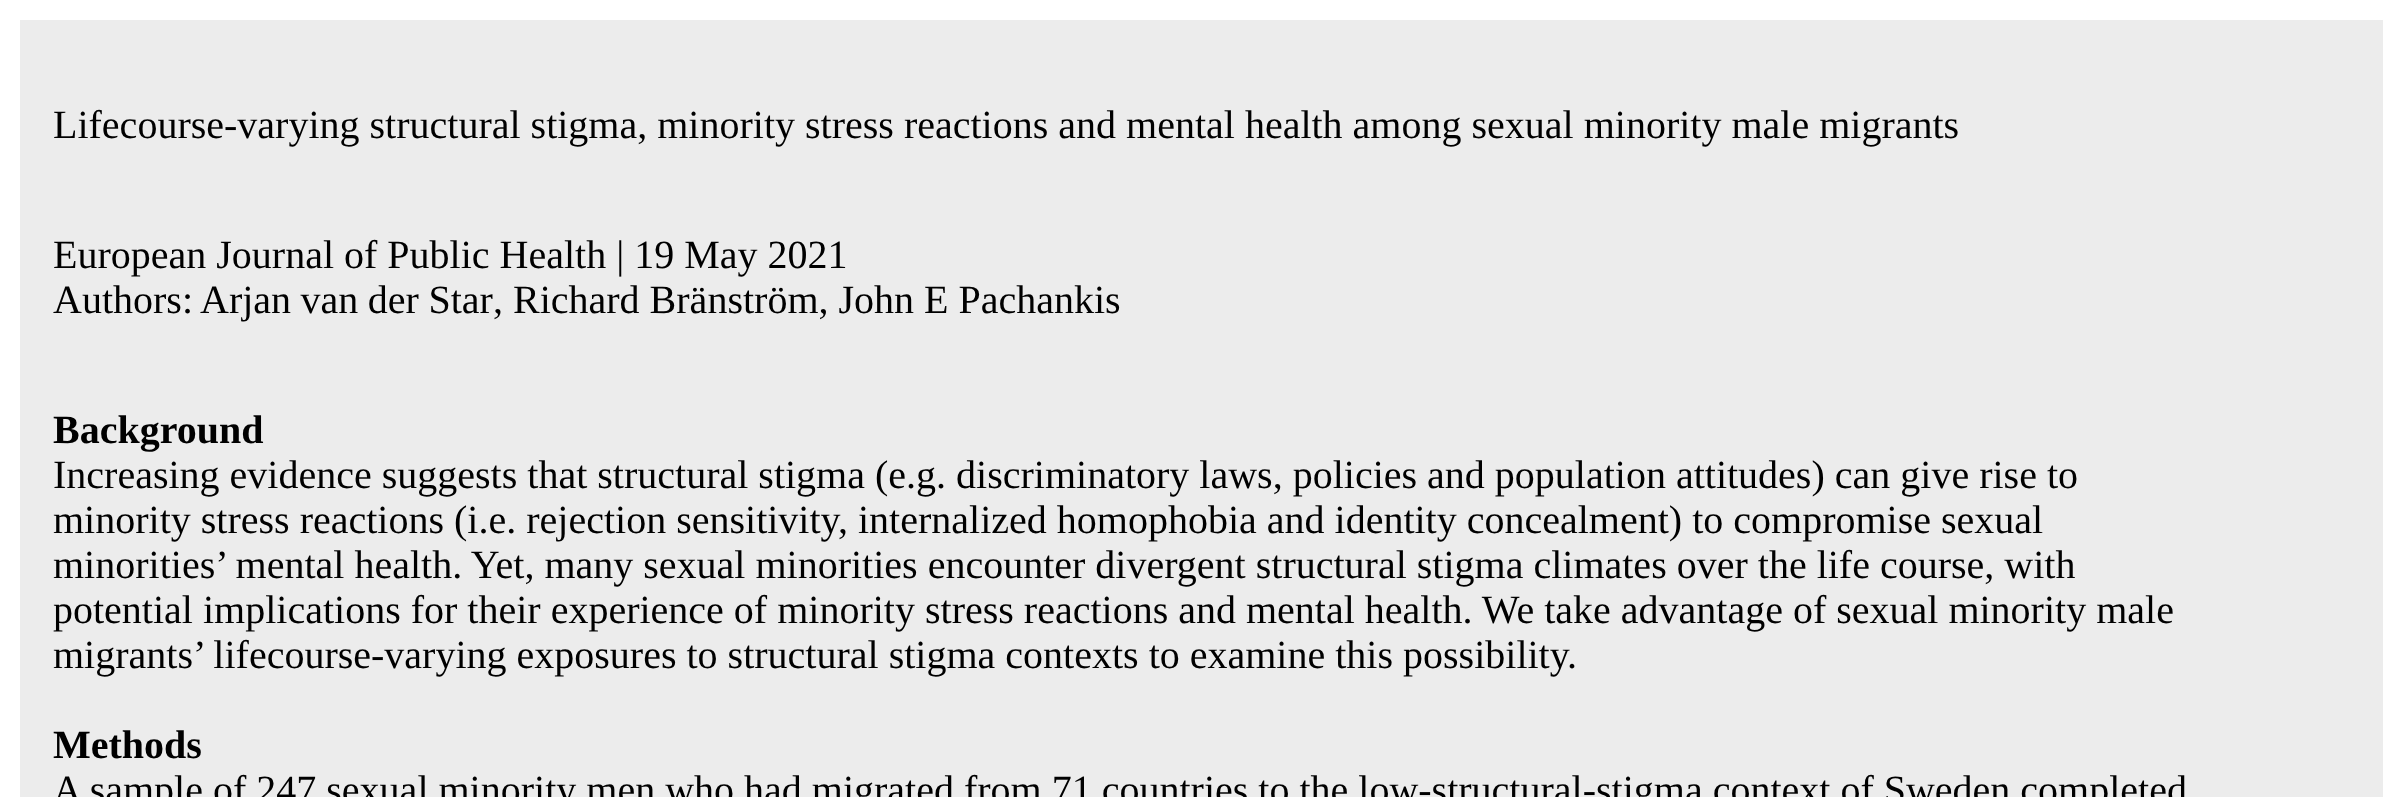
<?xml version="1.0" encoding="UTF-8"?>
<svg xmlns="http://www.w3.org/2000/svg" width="2402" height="797">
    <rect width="100%" height="100%" fill="#FFFFFF"/>
    <rect x="20" y="20" width="2363" height="777" fill="#ECECEC"/>
    <text x="53" y="138" font-family="Liberation Serif" font-size="40" fill="#000000">Lifecourse-varying structural stigma, minority stress reactions and mental health among sexual minority male migrants</text>
    <text font-family="Liberation Serif" font-size="40" fill="#000000">
        <tspan x="53" y="268">European Journal of Public Health | 19 May 2021</tspan>
        <tspan x="53" y="313">Authors:</tspan>
    </text>
    <text x="200" y="313" word-spacing="-0.5" font-family="Liberation Serif" font-size="40" fill="#000000">Arjan van der Star</text>
    <text x="493" y="313" font-family="Liberation Serif" font-size="40" fill="#000000">, Richard Bränström, John E Pachankis</text>
    <text x="53" y="443" font-family="Liberation Serif" font-size="40" font-weight="700" fill="#000000">Background</text>
    <text font-family="Liberation Serif" font-size="40" fill="#000000">
        <tspan x="53" y="488">Increasing evidence suggests that structural stigma (e.g. discriminatory laws, policies and population attitudes) can give rise to</tspan>
        <tspan x="53" y="533">minority stress reactions (i.e. rejection sensitivity, internalized homophobia and identity concealment) to compromise sexual</tspan>
        <tspan x="53" y="578">minorities’ mental health. Yet, many sexual minorities encounter divergent structural stigma climates over the life course, with</tspan>
        <tspan x="53" y="623">potential implications for their experience of minority stress reactions and mental health. We take advantage of sexual minority male</tspan>
        <tspan x="53" y="668">migrants’ lifecourse-varying exposures to structural stigma contexts to examine this possibility.</tspan>
    </text>
    <text x="53" y="758" font-family="Liberation Serif" font-size="40" font-weight="700" fill="#000000">Methods</text>
    <text x="53" y="803" font-family="Liberation Serif" font-size="40" fill="#000000">A sample of 247 sexual minority men who had migrated from 71 countries to the low-structural-stigma context of Sweden completed</text>
</svg>
